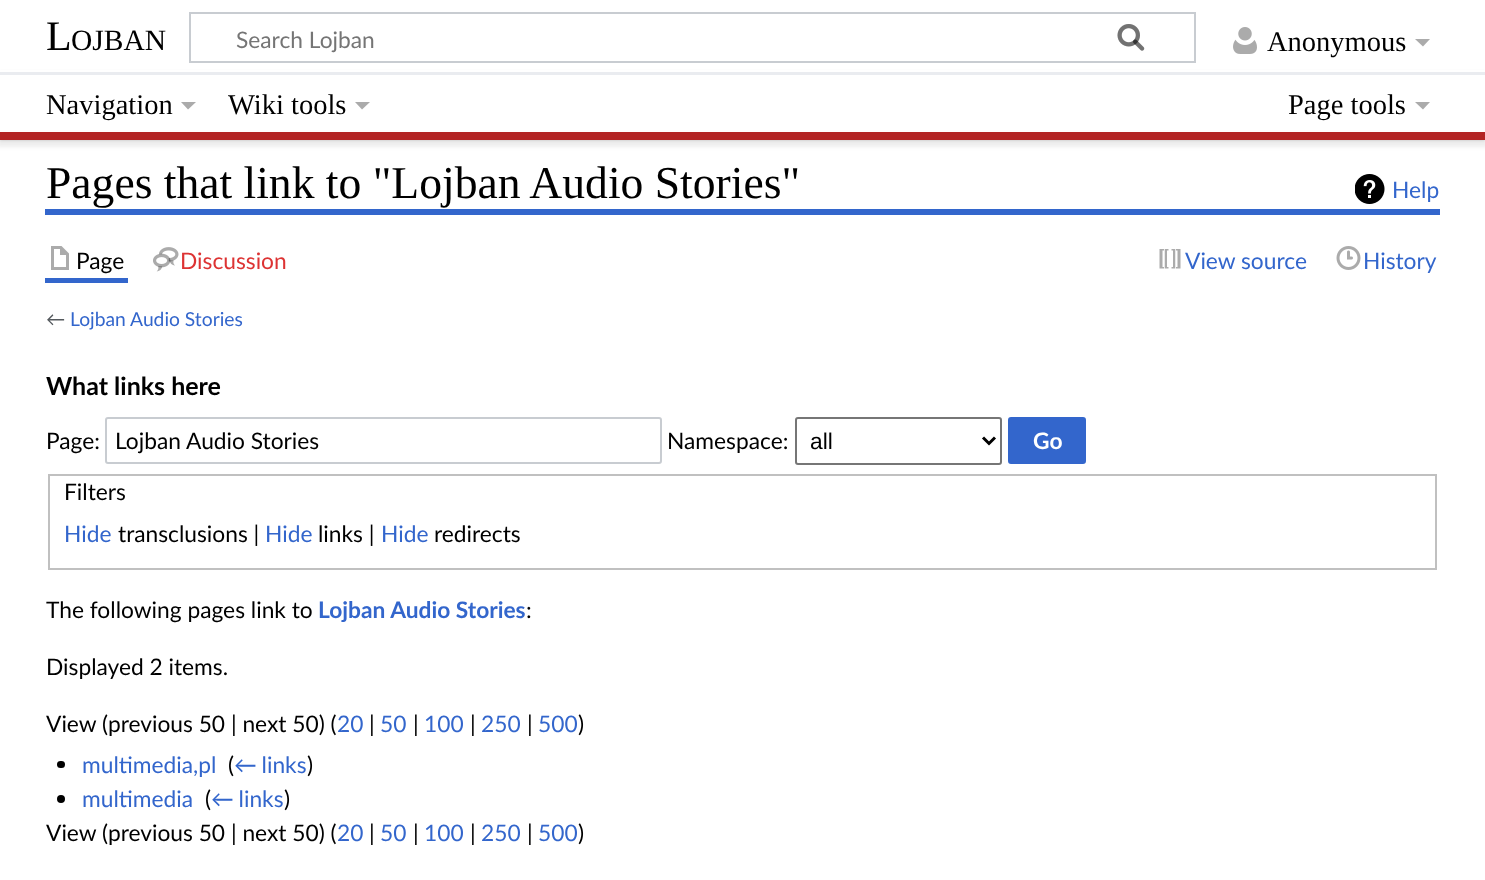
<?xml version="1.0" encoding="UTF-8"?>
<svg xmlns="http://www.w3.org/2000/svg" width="1485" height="880">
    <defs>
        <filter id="blur1" x="-50%" y="-200%" width="200%" height="500%"><feGaussianBlur stdDeviation="1.5"/></filter>
        <filter id="blur2" x="-50%" y="-200%" width="200%" height="500%"><feGaussianBlur stdDeviation="2"/></filter>
    </defs>
    <rect width="100%" height="100%" fill="#FFFFFF"/>
    <rect x="0" y="72" width="1485" height="68" fill="#000000" fill-opacity="0.2" filter="url(#blur1)"/>
    <rect x="-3" y="74" width="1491" height="73" fill="#000000" fill-opacity="0.07" filter="url(#blur2)"/>
    <rect x="0" y="70" width="1485" height="2" fill="#FFFFFF"/>
    <text x="46" y="50" font-family="Liberation Serif" font-size="42" fill="#000000">L</text>
    <text x="71" y="50" font-family="Liberation Serif" font-size="29.5" fill="#000000">OJBAN</text>
    <rect x="190" y="13" width="1005" height="49" fill="none" stroke="#C8CCD1" stroke-width="2"/>
    <image x="1117" y="24" width="28" height="27" href="img_01.png"/>
    <text x="236" y="48" font-family="Lato" font-size="22.75" fill="#757575">Search Lojban</text>
    <image x="1117" y="24" width="28" height="27" href="img_02.png"/>
    <image x="1233" y="27" width="24" height="27" href="img_03.png"/>
    <text x="1267" y="51" font-family="Liberation Serif" font-size="28.5" fill="#000000">Anonymous</text>
    <path d="M 1430 39 L 1423 46.5 L 1415 39 Z" fill="#ABABAB"/>
    <rect x="0" y="75" width="1485" height="57" fill="#FFFFFF"/>
    <rect x="0" y="72" width="1485" height="3" fill="#EAECF0"/>
    <rect x="0" y="132" width="1485" height="8" fill="#B32424"/>
    <text x="46" y="114" font-family="Liberation Serif" font-size="28.5" fill="#000000">Navigation</text>
    <path d="M 196 102 L 188 109.5 L 181 102 Z" fill="#ABABAB"/>
    <text x="228" y="114" font-family="Liberation Serif" font-size="28.5" fill="#000000">Wiki tools</text>
    <path d="M 370 102 L 362 109.5 L 355 102 Z" fill="#ABABAB"/>
    <text x="1288" y="114" font-family="Liberation Serif" font-size="28.5" fill="#000000">Page tools</text>
    <path d="M 1430 102 L 1423 109.5 L 1415 102 Z" fill="#ABABAB"/>
    <rect x="45" y="209" width="1395" height="6" fill="#3366CC"/>
    <text x="46" y="198" font-family="Liberation Serif" font-size="45.6" fill="#000000">Pages that link to "Lojban Audio Stories"</text>
    <image x="1355" y="174" width="30" height="30" href="img_04.png"/>
    <text x="1392" y="198" font-family="Lato" font-size="22.75" fill="#3366CC">Help</text>
    <rect x="45" y="278" width="83" height="5" fill="#3366CC"/>
    <image x="51" y="246" width="18" height="24" href="img_05.png"/>
    <text x="76" y="269" font-family="Lato" font-size="22.75" fill="#000000">Page</text>
    <image x="153" y="247" width="26" height="25" href="img_06.png"/>
    <text x="180" y="269" font-family="Lato" font-size="22.75" fill="#DD3333">Discussion</text>
    <image x="1159" y="249" width="22" height="20" href="img_07.png"/>
    <text x="1185" y="269" font-family="Lato" font-size="22.75" fill="#3366CC">View source</text>
    <image x="1336" y="246" width="25" height="24" href="img_08.png"/>
    <text x="1363" y="269" font-family="Lato" font-size="22.75" fill="#3366CC">History</text>
    <text x="46" y="326" font-family="Lato" font-size="19.25" fill="#54595D">←</text>
    <text x="70" y="326" font-family="Lato" font-size="19.25" fill="#3366CC">Lojban Audio Stories</text>
    <text x="46" y="395" font-family="Lato" font-size="25" font-weight="700" fill="#000000">What links here</text>
    <text x="46" y="449" font-family="Lato" font-size="22.75" fill="#000000">Page:</text>
    <rect x="106" y="418" width="555" height="45" rx="2" fill="none" stroke="#C8CCD1" stroke-width="2"/>
    <text x="115" y="449" font-family="Lato" font-size="22.75" fill="#000000">Lojban Audio Stories</text>
    <text x="667" y="449" font-family="Lato" font-size="22.75" fill="#000000">Namespace:</text>
    <rect x="796" y="418" width="205" height="46" rx="2" fill="none" stroke="#767676" stroke-width="2"/>
    <path d="M 983 437.5 L 989 443.5 L 995 437.5" fill="none" stroke="#000000" stroke-width="3"/>
    <text x="810" y="449" font-family="Liberation Sans" font-size="22.75" fill="#000000">all</text>
    <rect x="1009" y="418" width="76" height="45" rx="2" fill="#3366CC" stroke="#3366CC" stroke-width="2"/>
    <text x="1033" y="449" font-family="Lato" font-size="22.75" font-weight="700" fill="#FFFFFF">Go</text>
    <rect x="49" y="475" width="1387" height="94" fill="none" stroke="#C0C0C0" stroke-width="2"/>
    <text x="64" y="500" font-family="Lato" font-size="22.75" fill="#000000">Filters</text>
    <text x="64" y="542" font-family="Lato" font-size="22.75" fill="#3366CC">Hide</text>
    <text x="118" y="542" font-family="Lato" font-size="22.75" fill="#000000">transclusions |</text>
    <text x="265" y="542" font-family="Lato" font-size="22.75" fill="#3366CC">Hide</text>
    <text x="318" y="542" font-family="Lato" font-size="22.75" fill="#000000">links |</text>
    <text x="381" y="542" font-family="Lato" font-size="22.75" fill="#3366CC">Hide</text>
    <text x="434" y="542" font-family="Lato" font-size="22.75" fill="#000000">redirects</text>
    <text x="46" y="618" font-family="Lato" font-size="22.75" fill="#000000">The following pages link to</text>
    <text x="318" y="618" font-family="Lato" font-size="22.75" font-weight="700" fill="#3366CC">Lojban Audio Stories</text>
    <text x="526" y="618" font-family="Lato" font-size="22.75" fill="#000000">:</text>
    <text x="46" y="675" font-family="Lato" font-size="22.75" fill="#000000">Displayed 2 items.</text>
    <text x="46" y="732" font-family="Lato" font-size="22.75" fill="#000000">View (previous 50 | next 50) (</text>
    <text x="337" y="732" font-family="Lato" font-size="22.75" fill="#3366CC">20</text>
    <text x="369" y="732" font-family="Lato" font-size="22.75" fill="#000000">|</text>
    <text x="380" y="732" font-family="Lato" font-size="22.75" fill="#3366CC">50</text>
    <text x="413" y="732" font-family="Lato" font-size="22.75" fill="#000000">|</text>
    <text x="424" y="732" font-family="Lato" font-size="22.75" fill="#3366CC">100</text>
    <text x="470" y="732" font-family="Lato" font-size="22.75" fill="#000000">|</text>
    <text x="481" y="732" font-family="Lato" font-size="22.75" fill="#3366CC">250</text>
    <text x="527" y="732" font-family="Lato" font-size="22.75" fill="#000000">|</text>
    <text x="538" y="732" font-family="Lato" font-size="22.75" fill="#3366CC">500</text>
    <text x="578" y="732" font-family="Lato" font-size="22.75" fill="#000000">)</text>
    <rect x="57" y="761" width="8" height="7" rx="3.5" fill="#000000"/>
    <text x="82" y="773" font-family="Lato" font-size="22.75" fill="#3366CC">multimedia,pl</text>
    <text x="228" y="773" font-family="Lato" font-size="22.75" fill="#000000">(</text>
    <text x="234" y="773" word-spacing="-1" font-family="Lato" font-size="22.75" fill="#3366CC">← links</text>
    <text x="307" y="773" font-family="Lato" font-size="22.75" fill="#000000">)</text>
    <circle cx="61" cy="799" r="4" fill="#000000"/>
    <text x="82" y="807" font-family="Lato" font-size="22.75" fill="#3366CC">multimedia</text>
    <text x="205" y="807" font-family="Lato" font-size="22.75" fill="#000000">(</text>
    <text x="211" y="807" word-spacing="-1" font-family="Lato" font-size="22.75" fill="#3366CC">← links</text>
    <text x="284" y="807" font-family="Lato" font-size="22.75" fill="#000000">)</text>
    <text x="46" y="841" font-family="Lato" font-size="22.75" fill="#000000">View (previous 50 | next 50) (</text>
    <text x="337" y="841" font-family="Lato" font-size="22.75" fill="#3366CC">20</text>
    <text x="369" y="841" font-family="Lato" font-size="22.75" fill="#000000">|</text>
    <text x="380" y="841" font-family="Lato" font-size="22.75" fill="#3366CC">50</text>
    <text x="413" y="841" font-family="Lato" font-size="22.75" fill="#000000">|</text>
    <text x="424" y="841" font-family="Lato" font-size="22.75" fill="#3366CC">100</text>
    <text x="470" y="841" font-family="Lato" font-size="22.75" fill="#000000">|</text>
    <text x="481" y="841" font-family="Lato" font-size="22.75" fill="#3366CC">250</text>
    <text x="527" y="841" font-family="Lato" font-size="22.75" fill="#000000">|</text>
    <text x="538" y="841" font-family="Lato" font-size="22.75" fill="#3366CC">500</text>
    <text x="578" y="841" font-family="Lato" font-size="22.75" fill="#000000">)</text>
</svg>
